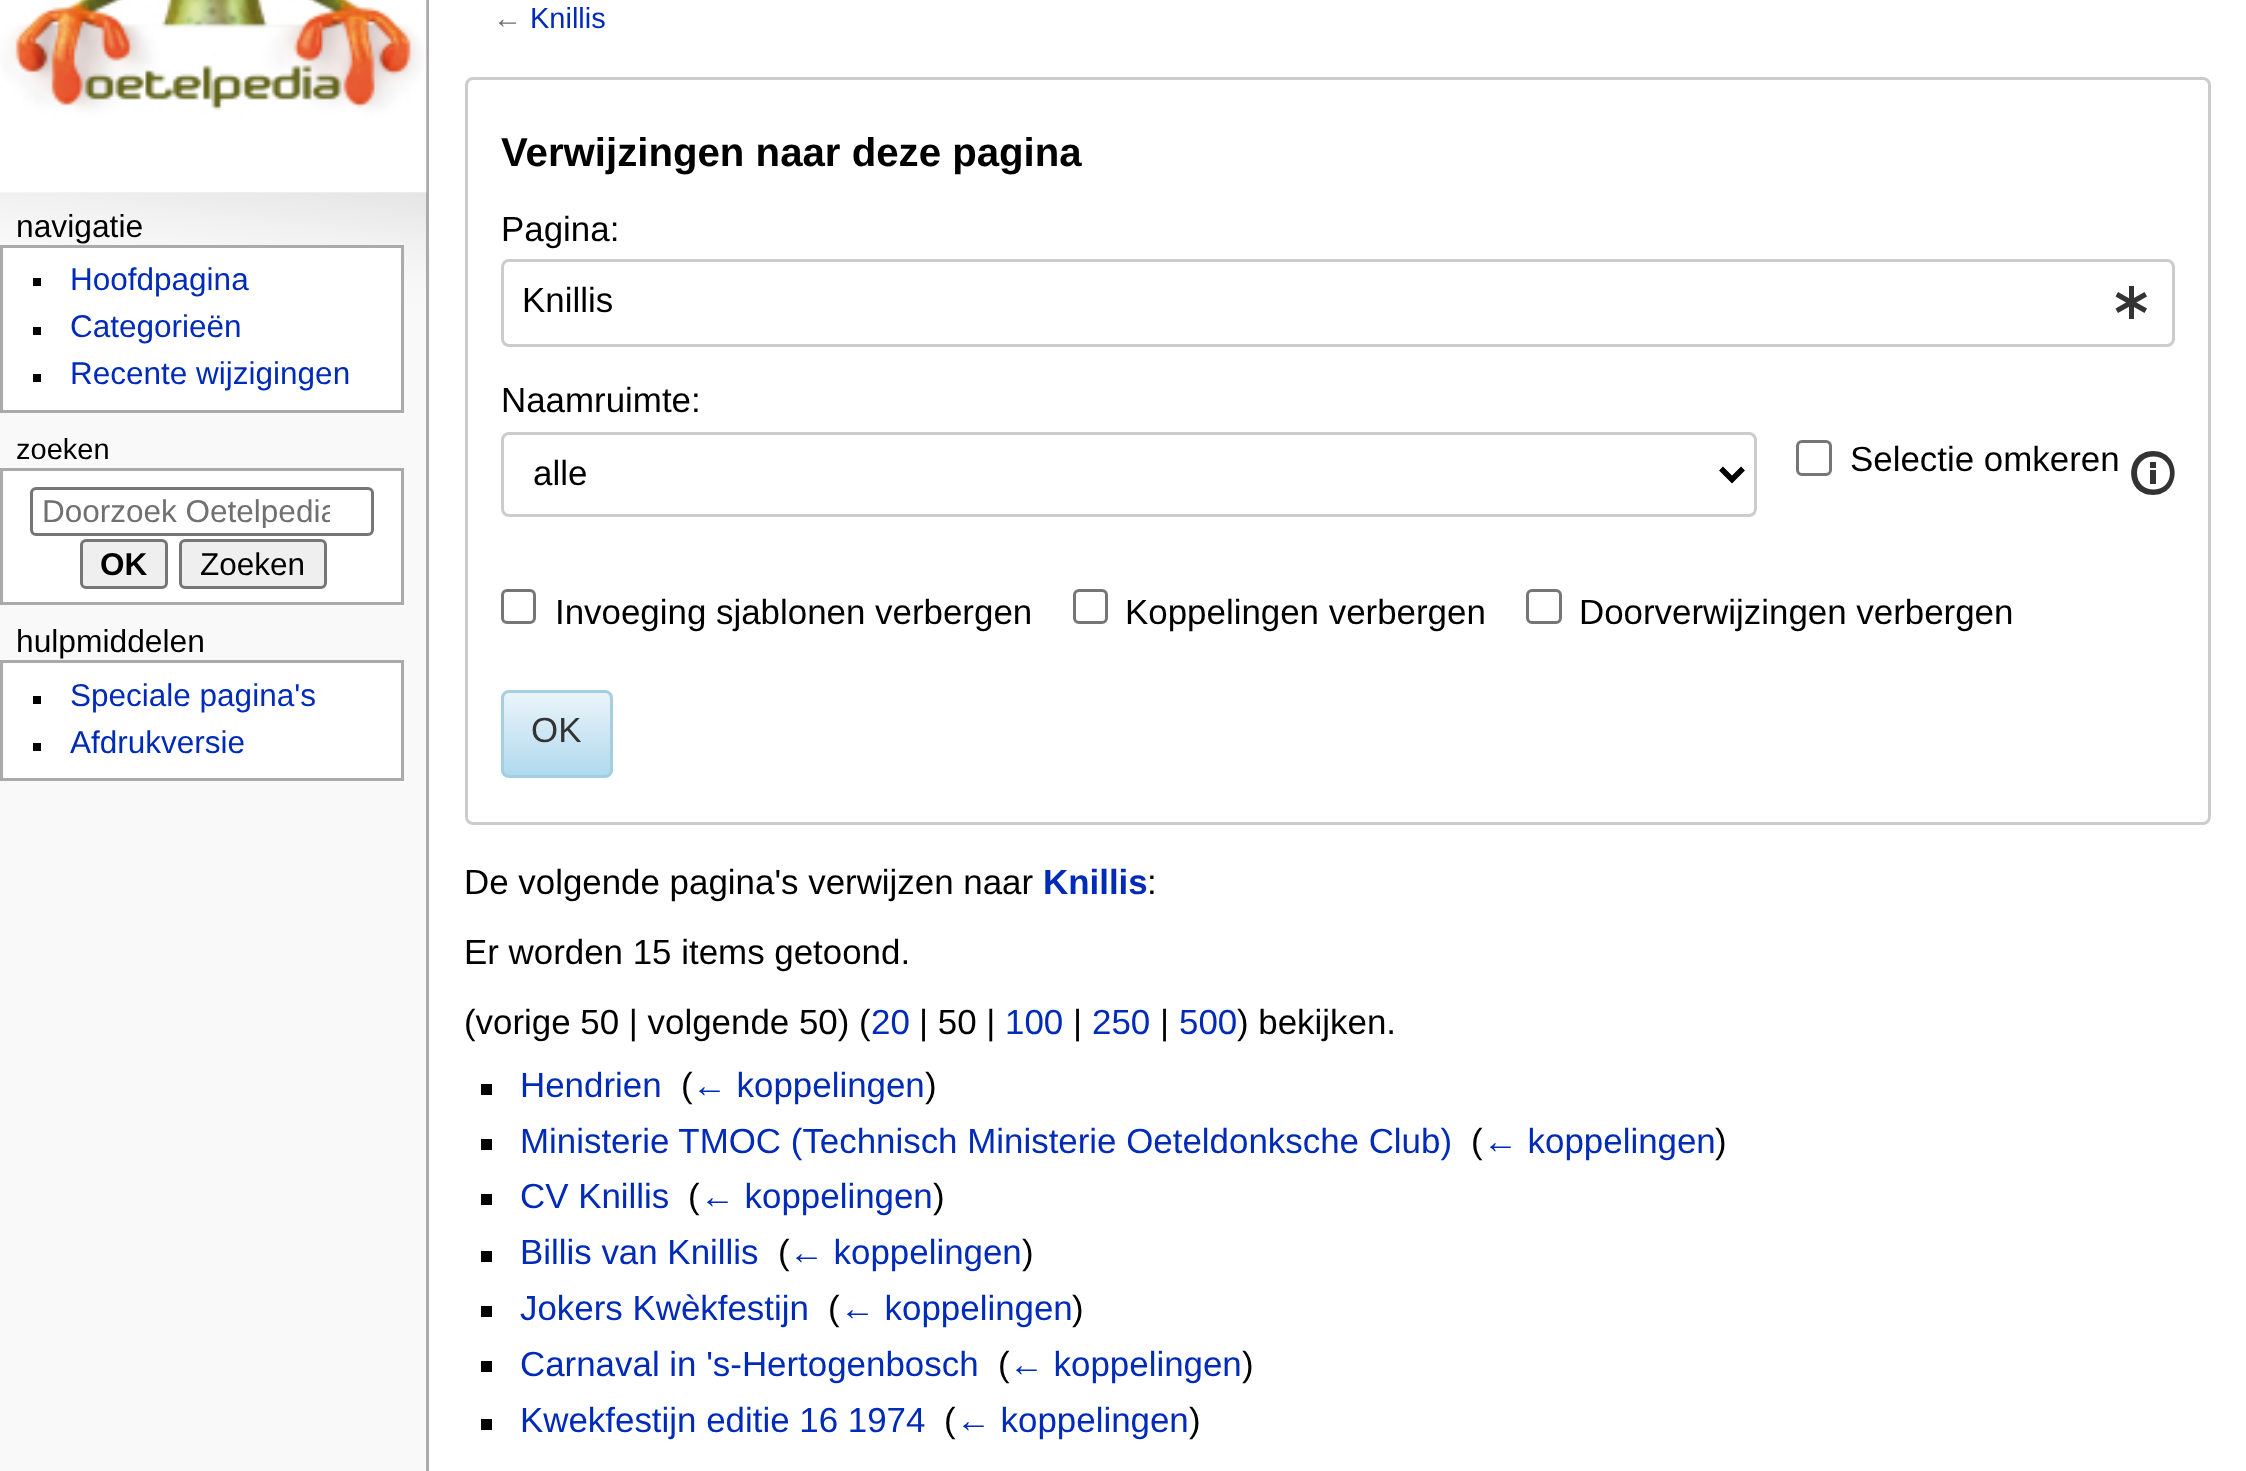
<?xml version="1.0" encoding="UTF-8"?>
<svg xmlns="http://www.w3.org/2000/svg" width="2246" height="1471">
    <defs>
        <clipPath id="clip1"><rect x="41" y="495" width="289" height="33"/></clipPath>
        <clipPath id="clip2"><rect x="501" y="690" width="112" height="88" rx="8"/></clipPath>
        <linearGradient id="g1" gradientUnits="userSpaceOnUse" x1="557" y1="693" x2="557" y2="776"><stop offset="0" stop-color="#EAF4FA"/><stop offset="1" stop-color="#B0D9EE"/></linearGradient>
    </defs>
    <rect width="100%" height="100%" fill="#F9F9F9"/>
    <image x="0" y="192" width="426" height="151" href="img_01.png"/>
    <rect x="426" y="0" width="3" height="1471" fill="#AAAAAA"/>
    <image x="0" y="0" width="427" height="193" href="img_02.png"/>
    <text x="16" y="237" font-family="Liberation Sans" font-size="31.75" fill="#000000">navigatie</text>
    <rect x="1.5" y="246.5" width="401" height="165" fill="#FFFFFF" stroke="#AAAAAA" stroke-width="3"/>
    <rect x="33" y="278" width="8" height="8" fill="#000000"/>
    <text x="70" y="290" font-family="Liberation Sans" font-size="31.5" fill="#002BB8">Hoofdpagina</text>
    <rect x="33" y="327" width="8" height="8" fill="#000000"/>
    <text x="70" y="337" font-family="Liberation Sans" font-size="31.5" fill="#002BB8">Categorieën</text>
    <rect x="33" y="374" width="8" height="8" fill="#000000"/>
    <text x="70" y="384" font-family="Liberation Sans" font-size="31.5" fill="#002BB8">Recente wijzigingen</text>
    <text x="16" y="459" font-family="Liberation Sans" font-size="29" fill="#000000">zoeken</text>
    <rect x="1.5" y="469.5" width="401" height="134" fill="#FFFFFF" stroke="#AAAAAA" stroke-width="3"/>
    <rect x="31.5" y="488.5" width="341" height="46" rx="4.5" fill="none" stroke="#767676" stroke-width="3"/>
    <g clip-path="url(#clip1)">
        <text x="42" y="522" font-family="Liberation Sans" font-size="31.5" fill="#707070">Doorzoek Oetelpedia</text>
    </g>
    <rect x="81.5" y="540.5" width="85" height="47" rx="4.5" fill="#EFEFEF" stroke="#767676" stroke-width="3"/>
    <text x="100" y="575" font-family="Liberation Sans" font-size="31.5" font-weight="700" fill="#000000">OK</text>
    <rect x="180.5" y="540.5" width="145" height="47" rx="4.5" fill="#EFEFEF" stroke="#767676" stroke-width="3"/>
    <text x="200" y="575" font-family="Liberation Sans" font-size="31.5" fill="#000000">Zoeken</text>
    <text x="16" y="652" font-family="Liberation Sans" font-size="31.75" fill="#000000">hulpmiddelen</text>
    <rect x="1.5" y="661.5" width="401" height="118" fill="#FFFFFF" stroke="#AAAAAA" stroke-width="3"/>
    <rect x="33" y="696" width="8" height="8" fill="#000000"/>
    <text x="70" y="706" font-family="Liberation Sans" font-size="31.5" fill="#002BB8">Speciale pagina's</text>
    <rect x="33" y="743" width="8" height="8" fill="#000000"/>
    <text x="70" y="753" font-family="Liberation Sans" font-size="31.5" fill="#002BB8">Afdrukversie</text>
    <rect x="429" y="0" width="1817" height="1471" fill="#FFFFFF"/>
    <text x="493" y="28" font-family="Liberation Sans" font-size="29" fill="#707070">←</text>
    <text x="530" y="28" font-family="Liberation Sans" font-size="29" fill="#002BB8">Knillis</text>
    <rect x="466.5" y="78.5" width="1743" height="745" rx="6.5" fill="none" stroke="#CCCCCC" stroke-width="3"/>
    <text x="501" y="166" font-family="Liberation Sans" font-size="40.2" font-weight="700" fill="#000000">Verwijzingen naar deze pagina</text>
    <text x="501" y="241" font-family="Liberation Sans" font-size="34.9" fill="#000000">Pagina:</text>
    <rect x="502.5" y="260.5" width="1671" height="85" rx="6.5" fill="none" stroke="#CCCCCC" stroke-width="3"/>
    <text x="522" y="312" font-family="Liberation Sans" font-size="34.9" fill="#000000">Knillis</text>
    <rect x="2129" y="286" width="5" height="33" fill="#333333"/>
    <path d="M 2147 308.5 L 2144.5 313 L 2115.5 296.5 L 2118 292 Z" fill="#333333"/>
    <path d="M 2144.5 292 L 2147 296.5 L 2118 313 L 2115.5 308.5 Z" fill="#333333"/>
    <text x="501" y="412" font-family="Liberation Sans" font-size="34.9" fill="#000000">Naamruimte:</text>
    <rect x="502.5" y="433.5" width="1253" height="82" rx="6.5" fill="none" stroke="#CCCCCC" stroke-width="3"/>
    <path d="M 1721 468.5 L 1732 479.5 L 1743 468.5" fill="none" stroke="#000000" stroke-width="5.5"/>
    <text x="533" y="485" font-family="Liberation Sans" font-size="34.9" fill="#000000">alle</text>
    <rect x="1797.5" y="441.5" width="33" height="33" rx="4.5" fill="none" stroke="#767676" stroke-width="3"/>
    <text x="1850" y="471" font-family="Liberation Sans" font-size="34.9" fill="#000000">Selectie omkeren</text>
    <path d="M 2137 473 C 2137 495 2170 495 2170 473 C 2170 451 2137 451 2137 473 M 2153 451 C 2182 451 2182 495 2153 495 C 2124 495 2124 451 2153 451 M 2156 470 V 484 H 2150 V 470 Z M 2156 468 V 462 H 2150 V 468 Z" fill="#333333"/>
    <rect x="502.5" y="590.5" width="32" height="32" rx="4.5" fill="none" stroke="#767676" stroke-width="3"/>
    <text x="555" y="624" font-family="Liberation Sans" font-size="34.9" fill="#000000">Invoeging sjablonen verbergen</text>
    <rect x="1074.5" y="590.5" width="32" height="32" rx="4.5" fill="none" stroke="#767676" stroke-width="3"/>
    <text x="1125" y="624" font-family="Liberation Sans" font-size="34.9" fill="#000000">Koppelingen verbergen</text>
    <rect x="1527.5" y="590.5" width="33" height="32" rx="4.5" fill="none" stroke="#767676" stroke-width="3"/>
    <text x="1579" y="624" font-family="Liberation Sans" font-size="34.9" fill="#000000">Doorverwijzingen verbergen</text>
    <g clip-path="url(#clip2)">
        <rect x="501" y="693" width="112" height="83" fill="url(#g1)"/>
    </g>
    <rect x="502.5" y="691.5" width="109" height="85" rx="6.5" fill="none" stroke="#A6CEE1" stroke-width="3"/>
    <text x="531" y="742" font-family="Liberation Sans" font-size="34.9" fill="#333333">OK</text>
    <text x="464" y="894" font-family="Liberation Sans" font-size="34.9" fill="#000000">De volgende pagina's verwijzen naar</text>
    <text x="1043" y="894" font-family="Liberation Sans" font-size="34.9" font-weight="700" fill="#002BB8">Knillis</text>
    <text x="1147" y="894" font-family="Liberation Sans" font-size="34.9" fill="#000000">:</text>
    <text x="464" y="964" font-family="Liberation Sans" font-size="34.9" fill="#000000">Er worden 15 items getoond.</text>
    <text x="464" y="1034" font-family="Liberation Sans" font-size="34.9" fill="#000000">(vorige 50 | volgende 50) (</text>
    <text x="871" y="1034" font-family="Liberation Sans" font-size="34.9" fill="#002BB8">20</text>
    <text x="919" y="1034" font-family="Liberation Sans" font-size="34.9" fill="#000000">| 50 |</text>
    <text x="1005" y="1034" font-family="Liberation Sans" font-size="34.9" fill="#002BB8">100</text>
    <text x="1073" y="1034" font-family="Liberation Sans" font-size="34.9" fill="#000000">|</text>
    <text x="1092" y="1034" font-family="Liberation Sans" font-size="34.9" fill="#002BB8">250</text>
    <text x="1160" y="1034" font-family="Liberation Sans" font-size="34.9" fill="#000000">|</text>
    <text x="1179" y="1034" font-family="Liberation Sans" font-size="34.9" fill="#002BB8">500</text>
    <text x="1237" y="1034" font-family="Liberation Sans" font-size="34.9" fill="#000000">) bekijken.</text>
    <rect x="481" y="1084" width="11" height="11" fill="#000000"/>
    <text x="520" y="1097" font-family="Liberation Sans" font-size="34.9" fill="#002BB8">Hendrien</text>
    <text x="681" y="1097" font-family="Liberation Sans" font-size="34.9" fill="#000000">(</text>
    <text x="692" y="1097" font-family="Liberation Sans" font-size="34.9" fill="#002BB8">← koppelingen</text>
    <text x="925" y="1097" font-family="Liberation Sans" font-size="34.9" fill="#000000">)</text>
    <rect x="481" y="1139" width="11" height="11" fill="#000000"/>
    <text x="520" y="1153" font-family="Liberation Sans" font-size="34.9" fill="#002BB8">Ministerie TMOC (Technisch Ministerie Oeteldonksche Club)</text>
    <text x="1471" y="1153" font-family="Liberation Sans" font-size="34.9" fill="#000000">(</text>
    <text x="1483" y="1153" font-family="Liberation Sans" font-size="34.9" fill="#002BB8">← koppelingen</text>
    <text x="1715" y="1153" font-family="Liberation Sans" font-size="34.9" fill="#000000">)</text>
    <rect x="481" y="1194" width="11" height="11" fill="#000000"/>
    <text x="520" y="1208" font-family="Liberation Sans" font-size="34.9" fill="#002BB8">CV Knillis</text>
    <text x="688" y="1208" font-family="Liberation Sans" font-size="34.9" fill="#000000">(</text>
    <text x="700" y="1208" font-family="Liberation Sans" font-size="34.9" fill="#002BB8">← koppelingen</text>
    <text x="933" y="1208" font-family="Liberation Sans" font-size="34.9" fill="#000000">)</text>
    <rect x="481" y="1251" width="11" height="11" fill="#000000"/>
    <text x="520" y="1264" font-family="Liberation Sans" font-size="34.9" fill="#002BB8">Billis van Knillis</text>
    <text x="778" y="1264" font-family="Liberation Sans" font-size="34.9" fill="#000000">(</text>
    <text x="789" y="1264" font-family="Liberation Sans" font-size="34.9" fill="#002BB8">← koppelingen</text>
    <text x="1022" y="1264" font-family="Liberation Sans" font-size="34.9" fill="#000000">)</text>
    <rect x="481" y="1306" width="11" height="11" fill="#000000"/>
    <text x="520" y="1320" font-family="Liberation Sans" font-size="34.9" fill="#002BB8">Jokers Kwèkfestijn</text>
    <text x="828" y="1320" font-family="Liberation Sans" font-size="34.9" fill="#000000">(</text>
    <text x="840" y="1320" font-family="Liberation Sans" font-size="34.9" fill="#002BB8">← koppelingen</text>
    <text x="1072" y="1320" font-family="Liberation Sans" font-size="34.9" fill="#000000">)</text>
    <rect x="481" y="1361" width="11" height="11" fill="#000000"/>
    <text x="520" y="1376" font-family="Liberation Sans" font-size="34.9" fill="#002BB8">Carnaval in 's-Hertogenbosch</text>
    <text x="998" y="1376" font-family="Liberation Sans" font-size="34.9" fill="#000000">(</text>
    <text x="1009" y="1376" font-family="Liberation Sans" font-size="34.9" fill="#002BB8">← koppelingen</text>
    <text x="1242" y="1376" font-family="Liberation Sans" font-size="34.9" fill="#000000">)</text>
    <rect x="481" y="1419" width="11" height="11" fill="#000000"/>
    <text x="520" y="1432" font-family="Liberation Sans" font-size="34.9" fill="#002BB8">Kwekfestijn editie 16 1974</text>
    <text x="944" y="1432" font-family="Liberation Sans" font-size="34.9" fill="#000000">(</text>
    <text x="956" y="1432" font-family="Liberation Sans" font-size="34.9" fill="#002BB8">← koppelingen</text>
    <text x="1189" y="1432" font-family="Liberation Sans" font-size="34.9" fill="#000000">)</text>
</svg>
